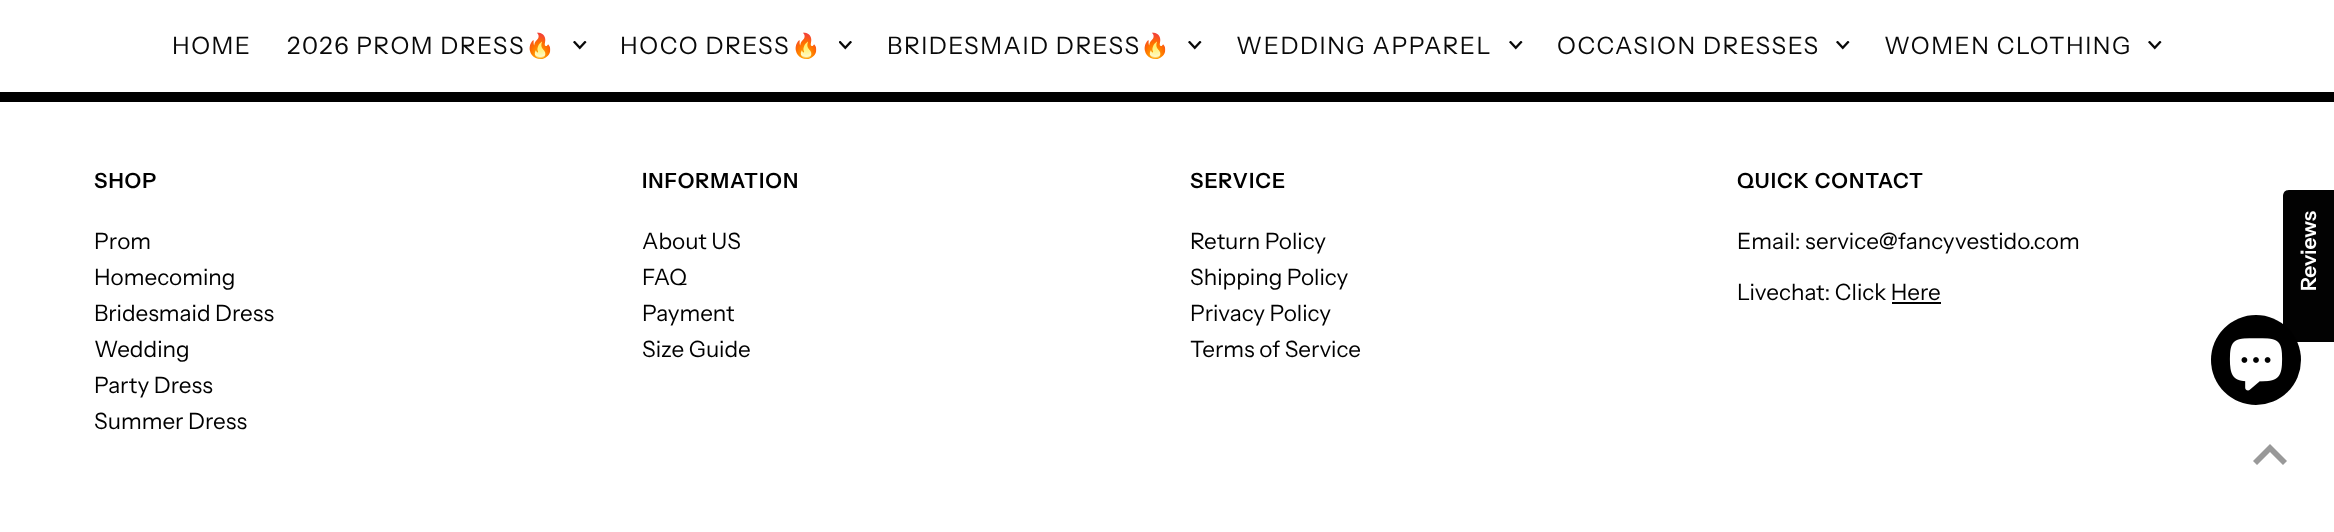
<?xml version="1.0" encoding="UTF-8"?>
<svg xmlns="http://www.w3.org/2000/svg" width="2334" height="532">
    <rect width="100%" height="100%" fill="#FFFFFF"/>
    <text x="172" y="54" font-family="Instrument Sans" font-size="24" letter-spacing="1.5" fill="#090909">HOME</text>
    <text x="287" y="54" font-family="Instrument Sans" font-size="24" letter-spacing="1.5" fill="#090909">2026 PROM DRESS</text>
    <text x="525" y="54" font-family="Noto Color Emoji" font-size="24" letter-spacing="1.5" fill="#090909">🔥</text>
    <image x="573" y="41" width="14" height="9" href="img_01.png"/>
    <text x="620" y="54" font-family="Instrument Sans" font-size="24" letter-spacing="1.5" fill="#090909">HOCO DRESS</text>
    <text x="791" y="54" font-family="Noto Color Emoji" font-size="24" letter-spacing="1.5" fill="#090909">🔥</text>
    <image x="839" y="41" width="13" height="9" href="img_02.png"/>
    <text x="887" y="54" font-family="Instrument Sans" font-size="24" letter-spacing="1.5" fill="#090909">BRIDESMAID DRESS</text>
    <text x="1140" y="54" font-family="Noto Color Emoji" font-size="24" letter-spacing="1.5" fill="#090909">🔥</text>
    <image x="1188" y="41" width="14" height="9" href="img_01.png"/>
    <text x="1236" y="54" font-family="Instrument Sans" font-size="24" letter-spacing="1.5" fill="#090909">WEDDING APPAREL</text>
    <image x="1509" y="41" width="14" height="9" href="img_01.png"/>
    <text x="1557" y="54" font-family="Instrument Sans" font-size="24" letter-spacing="1.5" fill="#090909">OCCASION DRESSES</text>
    <image x="1836" y="41" width="14" height="9" href="img_01.png"/>
    <text x="1884" y="54" font-family="Instrument Sans" font-size="24" letter-spacing="1.5" fill="#090909">WOMEN CLOTHING</text>
    <image x="2148" y="41" width="14" height="9" href="img_01.png"/>
    <rect x="0" y="92" width="2334" height="10" fill="#000000"/>
    <text x="94" y="188" font-family="Instrument Sans" font-size="21" font-weight="600" letter-spacing="1" fill="#000000">SHOP</text>
    <text font-family="Instrument Sans" font-size="22.5" fill="#000000">
        <tspan x="94" y="249">Prom</tspan>
        <tspan x="94" y="285">Homecoming</tspan>
        <tspan x="94" y="321">Bridesmaid Dress</tspan>
        <tspan x="94" y="357">Wedding</tspan>
        <tspan x="94" y="393">Party Dress</tspan>
        <tspan x="94" y="429">Summer Dress</tspan>
    </text>
    <text x="642" y="188" font-family="Instrument Sans" font-size="21" font-weight="600" letter-spacing="1" fill="#000000">INFORMATION</text>
    <text font-family="Instrument Sans" font-size="22.5" fill="#000000">
        <tspan x="642" y="249">About US</tspan>
        <tspan x="642" y="285">FAQ</tspan>
        <tspan x="642" y="321">Payment</tspan>
        <tspan x="642" y="357">Size Guide</tspan>
    </text>
    <text x="1190" y="188" font-family="Instrument Sans" font-size="21" font-weight="600" letter-spacing="1" fill="#000000">SERVICE</text>
    <text font-family="Instrument Sans" font-size="22.5" fill="#000000">
        <tspan x="1190" y="249">Return Policy</tspan>
        <tspan x="1190" y="285">Shipping Policy</tspan>
        <tspan x="1190" y="321">Privacy Policy</tspan>
        <tspan x="1190" y="357">Terms of Service</tspan>
    </text>
    <text x="1737" y="188" font-family="Instrument Sans" font-size="21" font-weight="600" letter-spacing="1" fill="#000000">QUICK CONTACT</text>
    <text x="1737" y="249" font-family="Instrument Sans" font-size="22.5" fill="#000000">Email: service@fancyvestido.com</text>
    <text x="1737" y="300" font-family="Instrument Sans" font-size="22.5" fill="#000000">Livechat: Click Here</text>
    <rect x="1892" y="302" width="49" height="2" fill="#000000"/>
    <path d="M 2283 336 V 196 C 2283 193 2285 190 2289 190 H 2334 V 342 H 2289 C 2285 342 2283 340 2283 336 Z" fill="#020202"/>
    <text x="2316" y="291" transform="rotate(-90 2316 291)" font-family="Instrument Sans" font-size="21" font-weight="600" fill="#FFFFFF">Reviews</text>
    <circle cx="2256" cy="360" r="45" fill="#000000"/>
    <image x="2229" y="338" width="54" height="53" href="img_03.png"/>
    <path d="M 2270 444 L 2253 461 L 2257 465 L 2270 452 L 2283 465 L 2287 461 Z" fill="#999999"/>
</svg>
